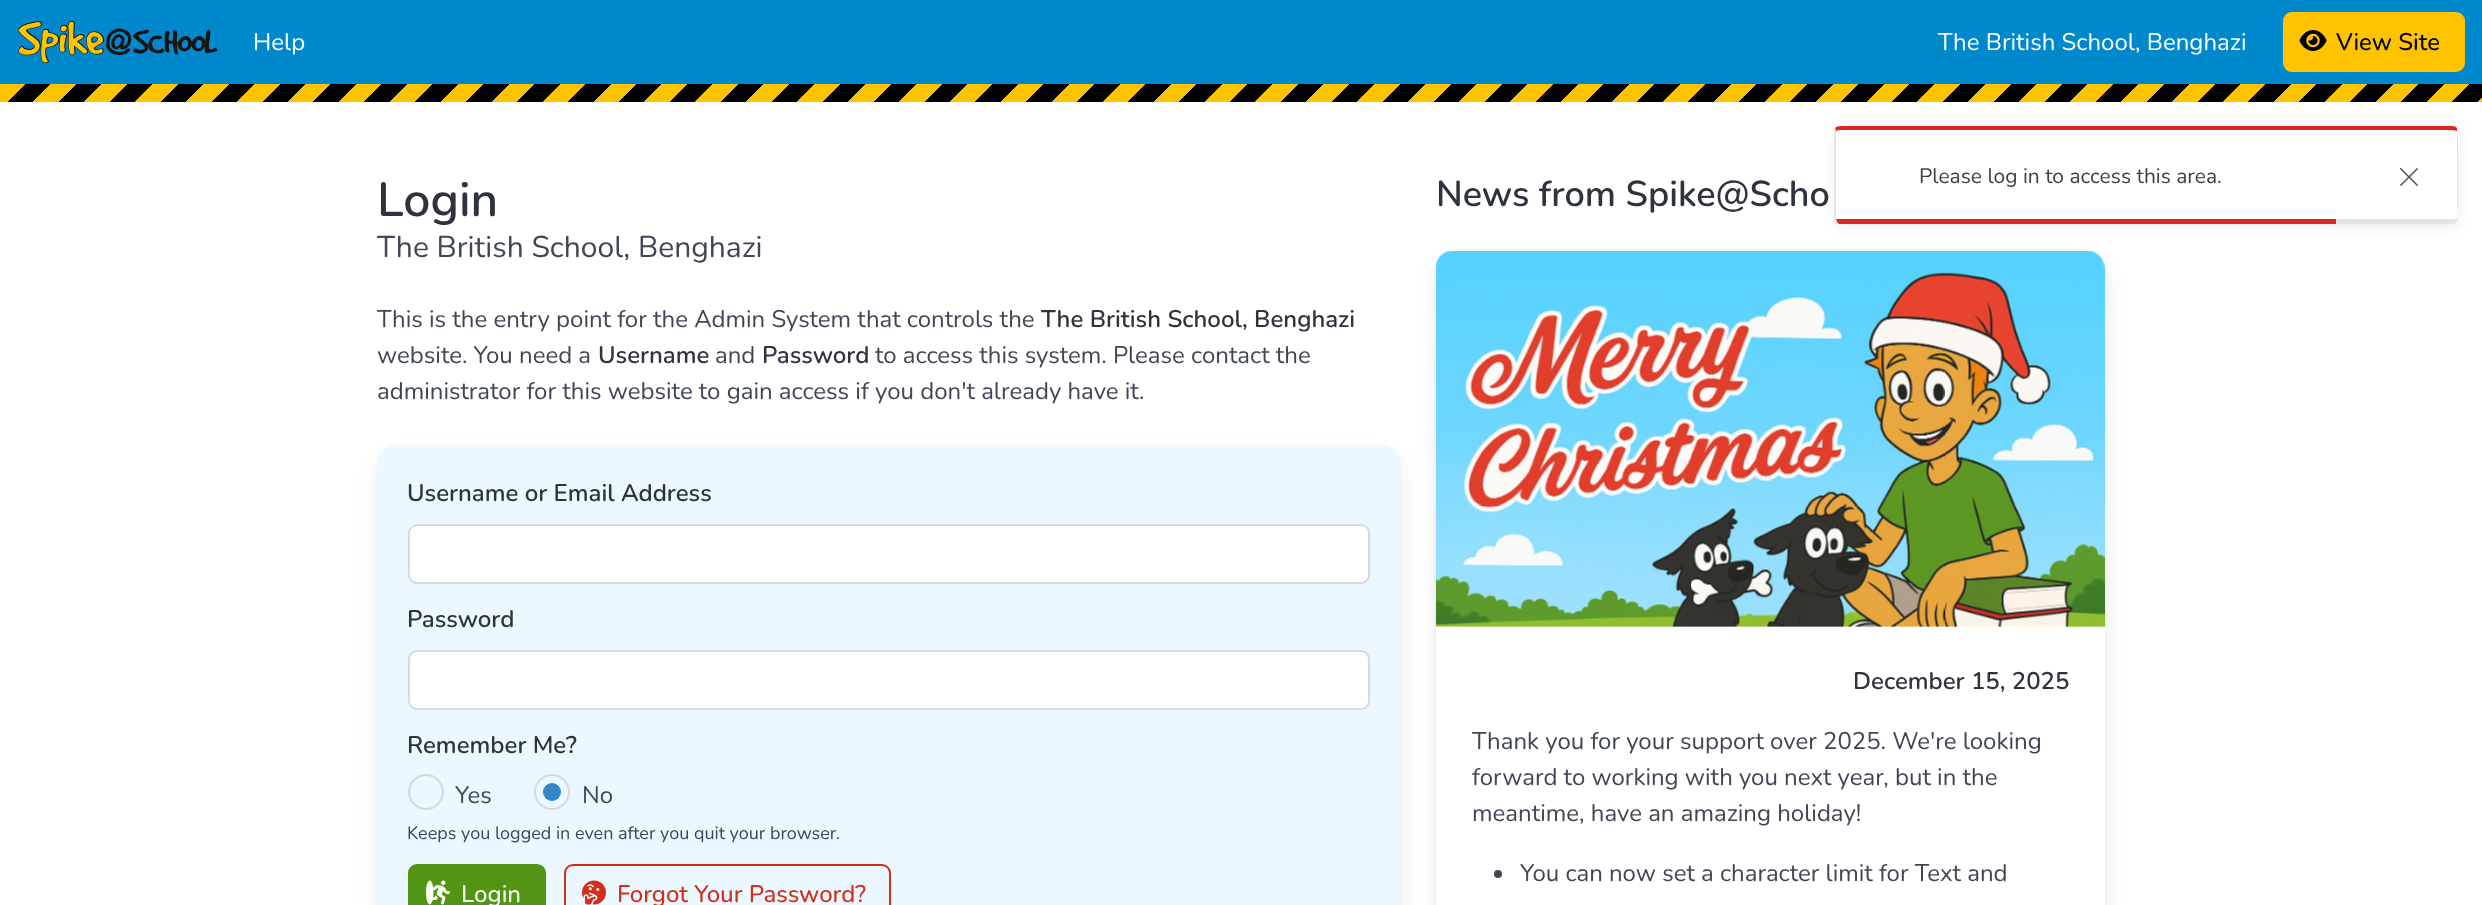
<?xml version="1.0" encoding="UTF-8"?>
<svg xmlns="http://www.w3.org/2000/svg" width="2482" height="905">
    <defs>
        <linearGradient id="g1" gradientUnits="userSpaceOnUse" x1="616" y1="-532" x2="1889" y2="741"><stop offset="0" stop-color="#FEC400"/><stop offset="0.01" stop-color="#FEC400"/><stop offset="0.01" stop-color="#000000"/><stop offset="0.02" stop-color="#000000"/><stop offset="0.02" stop-color="#FEC400"/><stop offset="0.03" stop-color="#FEC400"/><stop offset="0.03" stop-color="#000000"/><stop offset="0.04" stop-color="#000000"/><stop offset="0.04" stop-color="#FEC400"/><stop offset="0.05" stop-color="#FEC400"/><stop offset="0.05" stop-color="#000000"/><stop offset="0.06" stop-color="#000000"/><stop offset="0.06" stop-color="#FEC400"/><stop offset="0.07" stop-color="#FEC400"/><stop offset="0.07" stop-color="#000000"/><stop offset="0.08" stop-color="#000000"/><stop offset="0.08" stop-color="#FEC400"/><stop offset="0.09" stop-color="#FEC400"/><stop offset="0.09" stop-color="#000000"/><stop offset="0.1" stop-color="#000000"/><stop offset="0.1" stop-color="#FEC400"/><stop offset="0.11" stop-color="#FEC400"/><stop offset="0.11" stop-color="#000000"/><stop offset="0.12" stop-color="#000000"/><stop offset="0.12" stop-color="#FEC400"/><stop offset="0.13" stop-color="#FEC400"/><stop offset="0.13" stop-color="#000000"/><stop offset="0.14" stop-color="#000000"/><stop offset="0.14" stop-color="#FEC400"/><stop offset="0.15" stop-color="#FEC400"/><stop offset="0.15" stop-color="#000000"/><stop offset="0.16" stop-color="#000000"/><stop offset="0.16" stop-color="#FEC400"/><stop offset="0.17" stop-color="#FEC400"/><stop offset="0.17" stop-color="#000000"/><stop offset="0.18" stop-color="#000000"/><stop offset="0.18" stop-color="#FEC400"/><stop offset="0.19" stop-color="#FEC400"/><stop offset="0.19" stop-color="#000000"/><stop offset="0.2" stop-color="#000000"/><stop offset="0.2" stop-color="#FEC400"/><stop offset="0.21" stop-color="#FEC400"/><stop offset="0.21" stop-color="#000000"/><stop offset="0.22" stop-color="#000000"/><stop offset="0.22" stop-color="#FEC400"/><stop offset="0.23" stop-color="#FEC400"/><stop offset="0.23" stop-color="#000000"/><stop offset="0.24" stop-color="#000000"/><stop offset="0.24" stop-color="#FEC400"/><stop offset="0.25" stop-color="#FEC400"/><stop offset="0.25" stop-color="#000000"/><stop offset="0.26" stop-color="#000000"/><stop offset="0.26" stop-color="#FEC400"/><stop offset="0.27" stop-color="#FEC400"/><stop offset="0.27" stop-color="#000000"/><stop offset="0.28" stop-color="#000000"/><stop offset="0.28" stop-color="#FEC400"/><stop offset="0.29" stop-color="#FEC400"/><stop offset="0.29" stop-color="#000000"/><stop offset="0.3" stop-color="#000000"/><stop offset="0.3" stop-color="#FEC400"/><stop offset="0.31" stop-color="#FEC400"/><stop offset="0.31" stop-color="#000000"/><stop offset="0.32" stop-color="#000000"/><stop offset="0.32" stop-color="#FEC400"/><stop offset="0.33" stop-color="#FEC400"/><stop offset="0.33" stop-color="#000000"/><stop offset="0.34" stop-color="#000000"/><stop offset="0.34" stop-color="#FEC400"/><stop offset="0.35" stop-color="#FEC400"/><stop offset="0.35" stop-color="#000000"/><stop offset="0.36" stop-color="#000000"/><stop offset="0.36" stop-color="#FEC400"/><stop offset="0.37" stop-color="#FEC400"/><stop offset="0.37" stop-color="#000000"/><stop offset="0.38" stop-color="#000000"/><stop offset="0.38" stop-color="#FEC400"/><stop offset="0.39" stop-color="#FEC400"/><stop offset="0.39" stop-color="#000000"/><stop offset="0.4" stop-color="#000000"/><stop offset="0.4" stop-color="#FEC400"/><stop offset="0.41" stop-color="#FEC400"/><stop offset="0.41" stop-color="#000000"/><stop offset="0.42" stop-color="#000000"/><stop offset="0.42" stop-color="#FEC400"/><stop offset="0.43" stop-color="#FEC400"/><stop offset="0.43" stop-color="#000000"/><stop offset="0.44" stop-color="#000000"/><stop offset="0.44" stop-color="#FEC400"/><stop offset="0.45" stop-color="#FEC400"/><stop offset="0.45" stop-color="#000000"/><stop offset="0.46" stop-color="#000000"/><stop offset="0.46" stop-color="#FEC400"/><stop offset="0.47" stop-color="#FEC400"/><stop offset="0.47" stop-color="#000000"/><stop offset="0.48" stop-color="#000000"/><stop offset="0.48" stop-color="#FEC400"/><stop offset="0.49" stop-color="#FEC400"/><stop offset="0.49" stop-color="#000000"/><stop offset="0.5" stop-color="#000000"/><stop offset="0.5" stop-color="#FEC400"/><stop offset="0.51" stop-color="#FEC400"/><stop offset="0.51" stop-color="#000000"/><stop offset="0.52" stop-color="#000000"/><stop offset="0.52" stop-color="#FEC400"/><stop offset="0.53" stop-color="#FEC400"/><stop offset="0.53" stop-color="#000000"/><stop offset="0.54" stop-color="#000000"/><stop offset="0.54" stop-color="#FEC400"/><stop offset="0.55" stop-color="#FEC400"/><stop offset="0.55" stop-color="#000000"/><stop offset="0.56" stop-color="#000000"/><stop offset="0.56" stop-color="#FEC400"/><stop offset="0.57" stop-color="#FEC400"/><stop offset="0.57" stop-color="#000000"/><stop offset="0.58" stop-color="#000000"/><stop offset="0.58" stop-color="#FEC400"/><stop offset="0.59" stop-color="#FEC400"/><stop offset="0.59" stop-color="#000000"/><stop offset="0.6" stop-color="#000000"/><stop offset="0.6" stop-color="#FEC400"/><stop offset="0.61" stop-color="#FEC400"/><stop offset="0.61" stop-color="#000000"/><stop offset="0.62" stop-color="#000000"/><stop offset="0.62" stop-color="#FEC400"/><stop offset="0.63" stop-color="#FEC400"/><stop offset="0.63" stop-color="#000000"/><stop offset="0.64" stop-color="#000000"/><stop offset="0.64" stop-color="#FEC400"/><stop offset="0.65" stop-color="#FEC400"/><stop offset="0.65" stop-color="#000000"/><stop offset="0.66" stop-color="#000000"/><stop offset="0.66" stop-color="#FEC400"/><stop offset="0.67" stop-color="#FEC400"/><stop offset="0.67" stop-color="#000000"/><stop offset="0.68" stop-color="#000000"/><stop offset="0.68" stop-color="#FEC400"/><stop offset="0.69" stop-color="#FEC400"/><stop offset="0.69" stop-color="#000000"/><stop offset="0.7" stop-color="#000000"/><stop offset="0.7" stop-color="#FEC400"/><stop offset="0.71" stop-color="#FEC400"/><stop offset="0.71" stop-color="#000000"/><stop offset="0.72" stop-color="#000000"/><stop offset="0.72" stop-color="#FEC400"/><stop offset="0.73" stop-color="#FEC400"/><stop offset="0.73" stop-color="#000000"/><stop offset="0.74" stop-color="#000000"/><stop offset="0.74" stop-color="#FEC400"/><stop offset="0.75" stop-color="#FEC400"/><stop offset="0.75" stop-color="#000000"/><stop offset="0.76" stop-color="#000000"/><stop offset="0.76" stop-color="#FEC400"/><stop offset="0.77" stop-color="#FEC400"/><stop offset="0.77" stop-color="#000000"/><stop offset="0.78" stop-color="#000000"/><stop offset="0.78" stop-color="#FEC400"/><stop offset="0.79" stop-color="#FEC400"/><stop offset="0.79" stop-color="#000000"/><stop offset="0.8" stop-color="#000000"/><stop offset="0.8" stop-color="#FEC400"/><stop offset="0.81" stop-color="#FEC400"/><stop offset="0.81" stop-color="#000000"/><stop offset="0.82" stop-color="#000000"/><stop offset="0.82" stop-color="#FEC400"/><stop offset="0.83" stop-color="#FEC400"/><stop offset="0.83" stop-color="#000000"/><stop offset="0.84" stop-color="#000000"/><stop offset="0.84" stop-color="#FEC400"/><stop offset="0.85" stop-color="#FEC400"/><stop offset="0.85" stop-color="#000000"/><stop offset="0.86" stop-color="#000000"/><stop offset="0.86" stop-color="#FEC400"/><stop offset="0.87" stop-color="#FEC400"/><stop offset="0.87" stop-color="#000000"/><stop offset="0.88" stop-color="#000000"/><stop offset="0.88" stop-color="#FEC400"/><stop offset="0.89" stop-color="#FEC400"/><stop offset="0.89" stop-color="#000000"/><stop offset="0.9" stop-color="#000000"/><stop offset="0.9" stop-color="#FEC400"/><stop offset="0.91" stop-color="#FEC400"/><stop offset="0.91" stop-color="#000000"/><stop offset="0.92" stop-color="#000000"/><stop offset="0.92" stop-color="#FEC400"/><stop offset="0.93" stop-color="#FEC400"/><stop offset="0.93" stop-color="#000000"/><stop offset="0.94" stop-color="#000000"/><stop offset="0.94" stop-color="#FEC400"/><stop offset="0.95" stop-color="#FEC400"/><stop offset="0.95" stop-color="#000000"/><stop offset="0.96" stop-color="#000000"/><stop offset="0.96" stop-color="#FEC400"/><stop offset="0.97" stop-color="#FEC400"/><stop offset="0.97" stop-color="#000000"/><stop offset="0.98" stop-color="#000000"/><stop offset="0.98" stop-color="#FEC400"/><stop offset="0.99" stop-color="#FEC400"/><stop offset="0.99" stop-color="#000000"/><stop offset="1" stop-color="#000000"/></linearGradient>
        <filter id="blur1" x="-50%" y="-200%" width="200%" height="500%"><feGaussianBlur stdDeviation="6"/></filter>
        <filter id="blur2" x="-50%" y="-200%" width="200%" height="500%"><feGaussianBlur stdDeviation="12"/></filter>
    </defs>
    <rect width="100%" height="100%" fill="#FFFFFF"/>
    <rect x="0" y="0" width="2482" height="84" fill="#0088CC"/>
    <image x="18" y="21" width="200" height="42" href="img_01.png"/>
    <text x="253" y="50" font-family="Nunito" font-size="24" fill="#FFFFFF">Help</text>
    <text x="1938" y="50" font-family="Nunito" font-size="24" fill="#FFFFFF">The British School, Benghazi</text>
    <rect x="2283" y="12" width="182" height="60" rx="9" fill="#FFC300"/>
    <image x="2299" y="30" width="28" height="21" href="img_02.png"/>
    <text x="2336" y="50" font-family="Nunito" font-size="24" font-weight="500" fill="#000000">View Site</text>
    <rect x="0" y="84" width="2482" height="18" fill="url(#g1)"/>
    <rect x="1835" y="129" width="624" height="98" rx="6" fill="#71717A" fill-opacity="0.12" filter="url(#blur1)"/>
    <rect x="1835" y="126" width="624" height="98" rx="6" fill="#FFFFFF"/>
    <path d="M 1840 126 C 1838 126 1836 127 1835 128 L 1836 131 C 1837 131 1838 130 1840 130 H 2452 C 2454 130 2456 131 2457 131 V 129 C 2457 127 2455 126 2452 126 Z" fill="#DC2626"/>
    <path d="M 2454 224 C 2460 220 2457 205 2457 204 V 131 V 129 C 2459 132 2459 218 2458 220 C 2457 222 2456 224 2454 224 Z" fill="#E4E4E7"/>
    <path d="M 1834 130 L 1835 128 L 1836 131 V 219 C 1836 221 1837 222 1839 224 H 1838 C 1836 223 1835 222 1834 220 Z" fill="#E4E4E7"/>
    <text x="1919" y="183" font-family="Nunito" font-size="21" fill="#3F3F46">Please log in to access this area.</text>
    <image x="2400" y="168" width="18" height="18" href="img_03.png"/>
    <path d="M 2457 219 C 2456 222 2455 224 2452 224 H 1840 C 1838 224 1837 222 1836 219 Z" fill="#E4E4E7"/>
    <path d="M 2336 224 H 1840 C 1838 224 1837 222 1836 219 H 2336 Z" fill="#DC2626"/>
    <text x="377" y="216" font-family="Nunito" font-size="48" font-weight="600" fill="#2E333D">Login</text>
    <text x="377" y="257" font-family="Nunito" font-size="30" fill="#404654">The British School, Benghazi</text>
    <text x="377" y="327" font-family="Nunito" font-size="24" fill="#404654">This is the entry point for the Admin System that controls the</text>
    <text x="1041" y="327" font-family="Nunito" font-size="24" font-weight="600" fill="#2E333D">The British School, Benghazi</text>
    <text x="377" y="363" font-family="Nunito" font-size="24" fill="#404654">website. You need a</text>
    <text x="598" y="363" font-family="Nunito" font-size="24" font-weight="600" fill="#2E333D">Username</text>
    <text x="715" y="363" font-family="Nunito" font-size="24" fill="#404654">and</text>
    <text x="762" y="363" font-family="Nunito" font-size="24" font-weight="600" fill="#2E333D">Password</text>
    <text x="875" y="363" font-family="Nunito" font-size="24" fill="#404654">to access this system. Please contact the</text>
    <text x="377" y="399" font-family="Nunito" font-size="24" fill="#404654">administrator for this website to gain access if you don't already have it.</text>
    <rect x="378" y="445" width="1022" height="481" rx="19" fill="none" stroke="#FAFAFA" stroke-width="2"/>
    <rect x="381" y="461" width="1016" height="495" rx="15" fill="#090A0C" fill-opacity="0.1" filter="url(#blur2)"/>
    <rect x="378" y="446" width="1022" height="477" rx="18" fill="#EBF8FF"/>
    <text x="407" y="501" font-family="Nunito" font-size="24" font-weight="600" fill="#2E333D">Username or Email Address</text>
    <rect x="409" y="525" width="960" height="58" rx="8" fill="#FFFFFF" stroke="#D6D9E0" stroke-width="2"/>
    <text x="407" y="627" font-family="Nunito" font-size="24" font-weight="600" fill="#2E333D">Password</text>
    <rect x="409" y="651" width="960" height="58" rx="8" fill="#FFFFFF" stroke="#D6D9E0" stroke-width="2"/>
    <text x="407" y="753" font-family="Nunito" font-size="24" font-weight="600" fill="#2E333D">Remember Me?</text>
    <circle cx="426" cy="792" r="17" fill="none" stroke="#D6D9E0" stroke-width="2"/>
    <text x="455" y="803" font-family="Nunito" font-size="24" fill="#404654">Yes</text>
    <circle cx="552" cy="792" r="17" fill="none" stroke="#D6D9E0" stroke-width="2"/>
    <circle cx="552" cy="792" r="9" fill="#3185C9"/>
    <text x="582" y="803" font-family="Nunito" font-size="24" fill="#404654">No</text>
    <text x="407" y="839" font-family="Nunito" font-size="18" fill="#404654">Keeps you logged in even after you quit your browser.</text>
    <rect x="408" y="864" width="138" height="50" rx="9" fill="#529414"/>
    <image x="426" y="880" width="24" height="25" href="img_04.png"/>
    <text x="461" y="902" font-family="Nunito" font-size="24" font-weight="500" fill="#FAFEF6">Login</text>
    <rect x="565" y="865" width="325" height="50" rx="8" fill="none" stroke="#D22E19" stroke-width="2"/>
    <image x="582" y="880" width="24" height="25" href="img_05.png"/>
    <text x="617" y="902" font-family="Nunito" font-size="24" font-weight="500" fill="#D22E19">Forgot Your Password?</text>
    <text x="1436" y="206" font-family="Nunito" font-size="36" font-weight="600" fill="#2E333D">News from Spike@Scho</text>
    <rect x="1435" y="250" width="670" height="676" rx="19" fill="none" stroke="#FAFAFA" stroke-width="2"/>
    <rect x="1439" y="266" width="663" height="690" rx="15" fill="#090A0C" fill-opacity="0.1" filter="url(#blur2)"/>
    <rect x="1436" y="251" width="669" height="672" rx="18" fill="#FFFFFF"/>
    <image x="1436" y="251" width="669" height="376" href="img_06.png"/>
    <text x="1853" y="689" font-family="Nunito" font-size="24" font-weight="600" fill="#2E333D">December 15, 2025</text>
    <text font-family="Nunito" font-size="24" fill="#404654">
        <tspan x="1472" y="749">Thank you for your support over 2025. We're looking</tspan>
        <tspan x="1472" y="785">forward to working with you next year, but in the</tspan>
        <tspan x="1472" y="821">meantime, have an amazing holiday!</tspan>
    </text>
    <circle cx="1498" cy="874" r="4" fill="#404654"/>
    <text x="1520" y="881" font-family="Nunito" font-size="24" fill="#404654">You can now set a character limit for Text and</text>
</svg>
